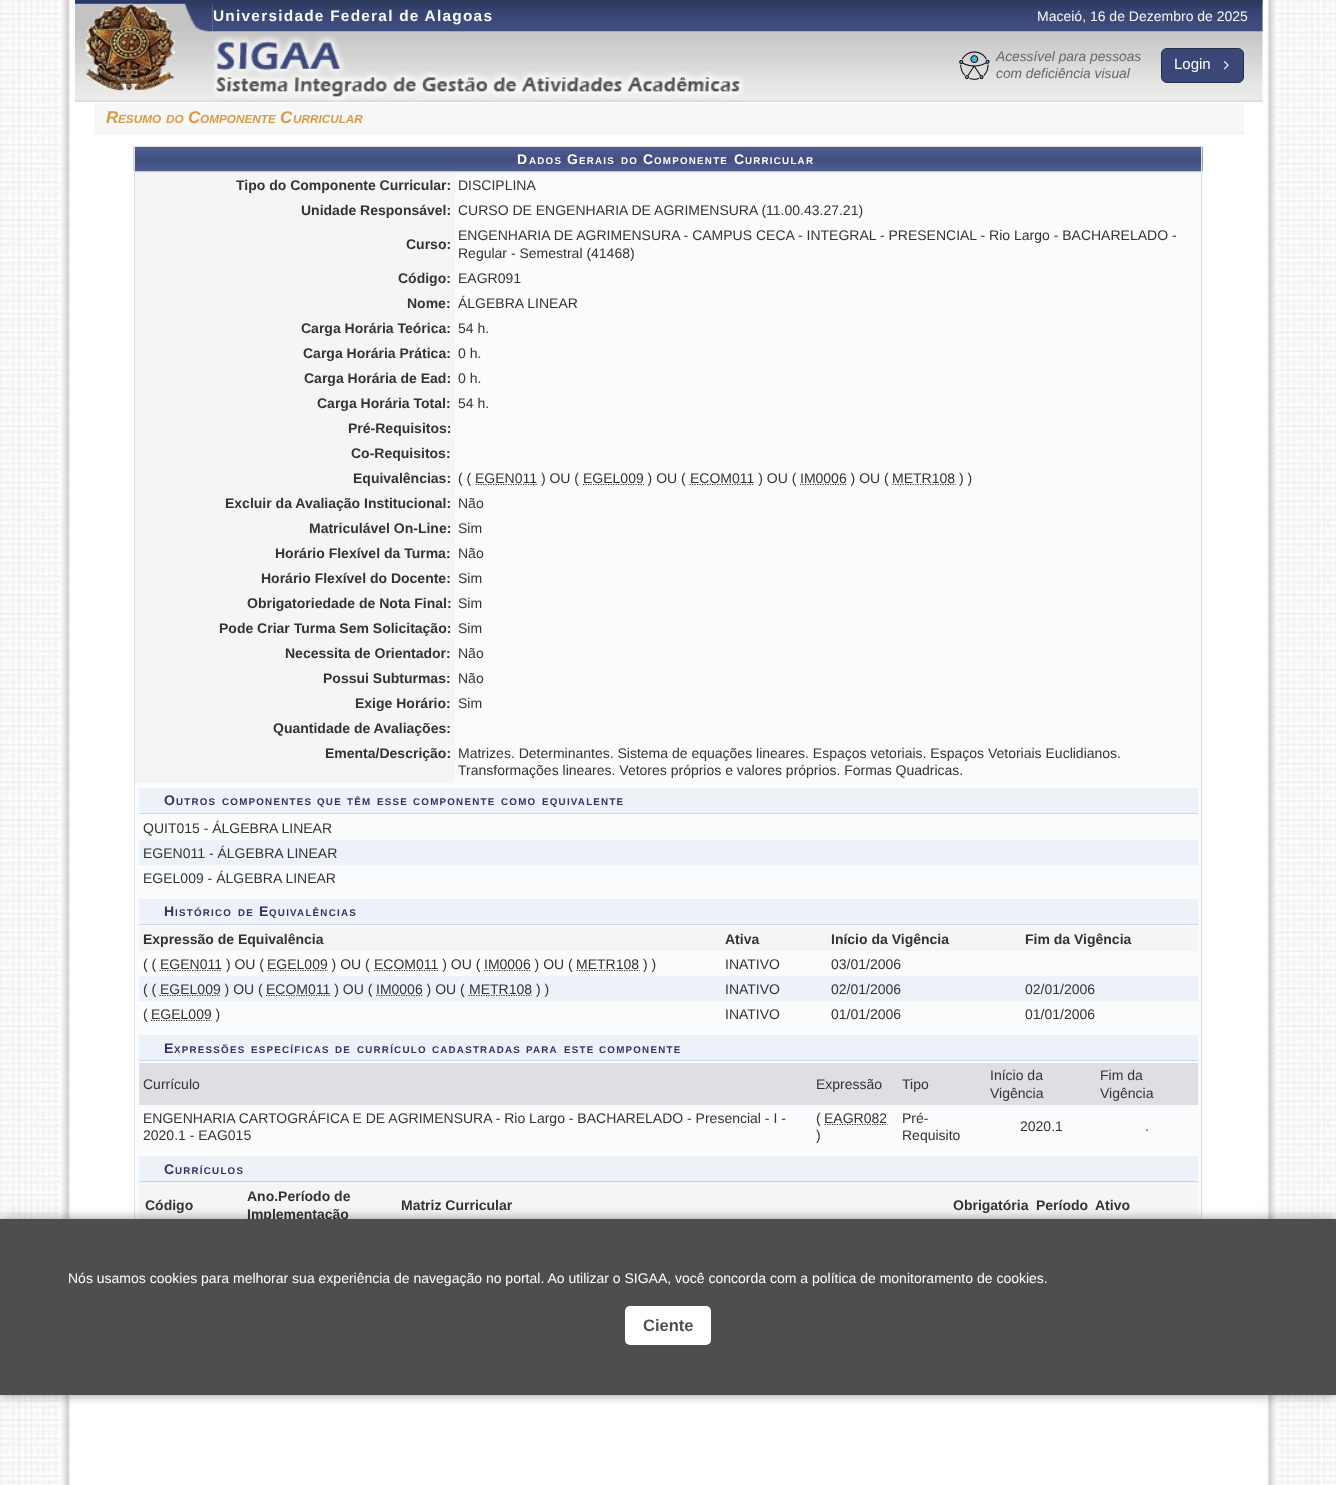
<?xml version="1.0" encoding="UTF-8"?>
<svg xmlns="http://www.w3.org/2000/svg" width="1336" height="1485">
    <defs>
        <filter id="blur1" x="-50%" y="-200%" width="200%" height="500%"><feGaussianBlur stdDeviation="6"/></filter>
    </defs>
    <rect width="100%" height="100%" fill="#FFFFFF"/>
    <image x="0" y="0" width="1336" height="1485" href="img_01.png"/>
    <image x="75" y="0" width="1188" height="101" href="img_02.png"/>
    <rect x="75" y="101" width="1188" height="1" fill="#DDDDDD"/>
    <image x="184" y="2" width="29" height="30" href="img_03.png"/>
    <image x="85" y="3" width="90" height="89" href="img_04.png"/>
    <image x="212" y="0" width="1051" height="32" href="img_05.png"/>
    <text x="213" y="21" font-family="Liberation Sans" font-size="15.4" font-weight="700" letter-spacing="1.25" fill="#F9F9F9">Universidade Federal de Alagoas</text>
    <text x="1037" y="21" font-family="Liberation Sans" font-size="14" fill="#F9F9F9">Maceió, 16 de Dezembro de 2025</text>
    <image x="213" y="35" width="531" height="66" href="img_06.png"/>
    <image x="959" y="51" width="31" height="29" href="img_07.png"/>
    <text font-family="Liberation Sans" font-size="13.75" font-style="italic" fill="#666666">
        <tspan x="996" y="61">Acessível para pessoas</tspan>
        <tspan x="996" y="78">com deficiência visual</tspan>
    </text>
    <rect x="1161.5" y="48.5" width="82" height="34" rx="5.5" fill="#3B4877" stroke="#242E47"/>
    <text x="1174" y="69" font-family="Liberation Sans" font-size="15" fill="#FFFFFF">Login</text>
    <image x="1223" y="61" width="6" height="9" href="img_08.png"/>
    <rect x="94" y="103" width="1150" height="30" fill="#F7F7F7"/>
    <rect x="94" y="133" width="1150" height="1" fill="#EEEEEE"/>
    <text x="106" y="123" font-family="Liberation Sans" font-size="17" font-weight="700" font-style="italic" fill="#D99C44">R</text>
    <text x="118" y="123" font-family="Liberation Sans" font-size="11.75" font-weight="700" font-style="italic" fill="#D99C44">ESUMO</text>
    <text x="166" y="123" font-family="Liberation Sans" font-size="11.75" font-weight="700" font-style="italic" fill="#D99C44">DO</text>
    <text x="188" y="123" font-family="Liberation Sans" font-size="17" font-weight="700" font-style="italic" fill="#D99C44">C</text>
    <text x="200" y="123" font-family="Liberation Sans" font-size="11.75" font-weight="700" font-style="italic" fill="#D99C44">OMPONENTE</text>
    <text x="280" y="123" font-family="Liberation Sans" font-size="17" font-weight="700" font-style="italic" fill="#D99C44">C</text>
    <text x="293" y="123" font-family="Liberation Sans" font-size="11.75" font-weight="700" font-style="italic" fill="#D99C44">URRICULAR</text>
    <rect x="135" y="147" width="1068" height="26" fill="#EBEBEB"/>
    <image x="133" y="146" width="1070" height="26" href="img_09.png"/>
    <rect x="134" y="146" width="1069" height="1" fill="#DEDFE3"/>
    <rect x="135" y="173" width="1068" height="1046" fill="#F9FBFD"/>
    <rect x="1201" y="146" width="1" height="1073" fill="#DEDFE3"/>
    <rect x="134" y="146" width="1" height="1073" fill="#DEDFE3"/>
    <text x="517" y="164" font-family="Liberation Sans" font-size="14" font-weight="700" letter-spacing="1.25" fill="#FFFFFF">D</text>
    <text x="529" y="164" font-family="Liberation Sans" font-size="9.75" font-weight="700" letter-spacing="1.25" fill="#FFFFFF">ADOS</text>
    <text x="567" y="164" font-family="Liberation Sans" font-size="14" font-weight="700" letter-spacing="1.25" fill="#FFFFFF">G</text>
    <text x="579" y="164" font-family="Liberation Sans" font-size="9.75" font-weight="700" letter-spacing="1.25" fill="#FFFFFF">ERAIS</text>
    <text x="621" y="164" font-family="Liberation Sans" font-size="9.75" font-weight="700" letter-spacing="1.25" fill="#FFFFFF">DO</text>
    <text x="643" y="164" font-family="Liberation Sans" font-size="14" font-weight="700" letter-spacing="1.25" fill="#FFFFFF">C</text>
    <text x="654" y="164" font-family="Liberation Sans" font-size="9.75" font-weight="700" letter-spacing="1.25" fill="#FFFFFF">OMPONENTE</text>
    <text x="734" y="164" font-family="Liberation Sans" font-size="14" font-weight="700" letter-spacing="1.25" fill="#FFFFFF">C</text>
    <text x="745" y="164" font-family="Liberation Sans" font-size="9.75" font-weight="700" letter-spacing="1.25" fill="#FFFFFF">URRICULAR</text>
    <rect x="135" y="173" width="320" height="610" fill="#F5F5F5"/>
    <text x="236" y="190" font-family="Liberation Sans" font-size="14" font-weight="700" fill="#333333">Tipo do Componente Curricular:</text>
    <text x="458" y="190" font-family="Liberation Sans" font-size="14" fill="#333333">DISCIPLINA</text>
    <text x="301" y="215" font-family="Liberation Sans" font-size="14" font-weight="700" fill="#333333">Unidade Responsável:</text>
    <text x="458" y="215" font-family="Liberation Sans" font-size="14" fill="#333333">CURSO DE ENGENHARIA DE AGRIMENSURA (11.00.43.27.21)</text>
    <text x="406" y="249" font-family="Liberation Sans" font-size="14" font-weight="700" fill="#333333">Curso:</text>
    <text font-family="Liberation Sans" font-size="14" fill="#333333">
        <tspan x="458" y="240">ENGENHARIA DE AGRIMENSURA - CAMPUS CECA - INTEGRAL - PRESENCIAL - Rio Largo - BACHARELADO -</tspan>
        <tspan x="458" y="258">Regular - Semestral (41468)</tspan>
    </text>
    <text x="398" y="283" font-family="Liberation Sans" font-size="14" font-weight="700" fill="#333333">Código:</text>
    <text x="458" y="283" font-family="Liberation Sans" font-size="14" fill="#333333">EAGR091</text>
    <text x="407" y="308" font-family="Liberation Sans" font-size="14" font-weight="700" fill="#333333">Nome:</text>
    <text x="458" y="308" font-family="Liberation Sans" font-size="14" fill="#333333">ÁLGEBRA LINEAR</text>
    <text x="301" y="333" font-family="Liberation Sans" font-size="14" font-weight="700" fill="#333333">Carga Horária Teórica:</text>
    <text x="458" y="333" font-family="Liberation Sans" font-size="14" fill="#333333">54 h.</text>
    <text x="303" y="358" font-family="Liberation Sans" font-size="14" font-weight="700" fill="#333333">Carga Horária Prática:</text>
    <text x="458" y="358" font-family="Liberation Sans" font-size="14" fill="#333333">0 h.</text>
    <text x="304" y="383" font-family="Liberation Sans" font-size="14" font-weight="700" fill="#333333">Carga Horária de Ead:</text>
    <text x="458" y="383" font-family="Liberation Sans" font-size="14" fill="#333333">0 h.</text>
    <text x="317" y="408" font-family="Liberation Sans" font-size="14" font-weight="700" fill="#333333">Carga Horária Total:</text>
    <text x="458" y="408" font-family="Liberation Sans" font-size="14" fill="#333333">54 h.</text>
    <text x="348" y="433" font-family="Liberation Sans" font-size="14" font-weight="700" fill="#333333">Pré-Requisitos:</text>
    <text x="351" y="458" font-family="Liberation Sans" font-size="14" font-weight="700" fill="#333333">Co-Requisitos:</text>
    <text x="353" y="483" font-family="Liberation Sans" font-size="14" font-weight="700" fill="#333333">Equivalências:</text>
    <text x="458" y="483" font-family="Liberation Sans" font-size="14" fill="#333333">( (</text>
    <path d="M 475.5 484.5 H 537.5" fill="none" stroke="#333333" stroke-width="1.2" stroke-dasharray="1.25 1.25"/>
    <text x="475" y="483" font-family="Liberation Sans" font-size="14" fill="#333333">EGEN011 ) OU (</text>
    <path d="M 583 484.5 H 644" fill="none" stroke="#333333" stroke-width="1.2" stroke-dasharray="1.25 1.25"/>
    <text x="583" y="483" font-family="Liberation Sans" font-size="14" fill="#333333">EGEL009 ) OU (</text>
    <path d="M 689.5 484.5 H 754" fill="none" stroke="#333333" stroke-width="1.2" stroke-dasharray="1.25 1.25"/>
    <text x="690" y="483" font-family="Liberation Sans" font-size="14" fill="#333333">ECOM011 ) OU (</text>
    <path d="M 800 484.5 H 846.5" fill="none" stroke="#333333" stroke-width="1.2" stroke-dasharray="1.25 1.25"/>
    <text x="800" y="483" font-family="Liberation Sans" font-size="14" fill="#333333">IM0006 ) OU (</text>
    <path d="M 892.5 484.5 H 955.5" fill="none" stroke="#333333" stroke-width="1.2" stroke-dasharray="1.25 1.25"/>
    <text x="892" y="483" font-family="Liberation Sans" font-size="14" fill="#333333">METR108 ) )</text>
    <text x="225" y="508" font-family="Liberation Sans" font-size="14" font-weight="700" fill="#333333">Excluir da Avaliação Institucional:</text>
    <text x="458" y="508" font-family="Liberation Sans" font-size="14" fill="#333333">Não</text>
    <text x="309" y="533" font-family="Liberation Sans" font-size="14" font-weight="700" fill="#333333">Matriculável On-Line:</text>
    <text x="458" y="533" font-family="Liberation Sans" font-size="14" fill="#333333">Sim</text>
    <text x="275" y="558" font-family="Liberation Sans" font-size="14" font-weight="700" fill="#333333">Horário Flexível da Turma:</text>
    <text x="458" y="558" font-family="Liberation Sans" font-size="14" fill="#333333">Não</text>
    <text x="261" y="583" font-family="Liberation Sans" font-size="14" font-weight="700" fill="#333333">Horário Flexível do Docente:</text>
    <text x="458" y="583" font-family="Liberation Sans" font-size="14" fill="#333333">Sim</text>
    <text x="247" y="608" font-family="Liberation Sans" font-size="14" font-weight="700" fill="#333333">Obrigatoriedade de Nota Final:</text>
    <text x="458" y="608" font-family="Liberation Sans" font-size="14" fill="#333333">Sim</text>
    <text x="219" y="633" font-family="Liberation Sans" font-size="14" font-weight="700" fill="#333333">Pode Criar Turma Sem Solicitação:</text>
    <text x="458" y="633" font-family="Liberation Sans" font-size="14" fill="#333333">Sim</text>
    <text x="285" y="658" font-family="Liberation Sans" font-size="14" font-weight="700" fill="#333333">Necessita de Orientador:</text>
    <text x="458" y="658" font-family="Liberation Sans" font-size="14" fill="#333333">Não</text>
    <text x="323" y="683" font-family="Liberation Sans" font-size="14" font-weight="700" fill="#333333">Possui Subturmas:</text>
    <text x="458" y="683" font-family="Liberation Sans" font-size="14" fill="#333333">Não</text>
    <text x="355" y="708" font-family="Liberation Sans" font-size="14" font-weight="700" fill="#333333">Exige Horário:</text>
    <text x="458" y="708" font-family="Liberation Sans" font-size="14" fill="#333333">Sim</text>
    <text x="273" y="733" font-family="Liberation Sans" font-size="14" font-weight="700" fill="#333333">Quantidade de Avaliações:</text>
    <text x="325" y="758" font-family="Liberation Sans" font-size="14" font-weight="700" fill="#333333">Ementa/Descrição:</text>
    <text font-family="Liberation Sans" font-size="14" fill="#333333">
        <tspan x="458" y="758">Matrizes. Determinantes. Sistema de equações lineares. Espaços vetoriais. Espaços Vetoriais Euclidianos.</tspan>
        <tspan x="458" y="775">Transformações lineares. Vetores próprios e valores próprios. Formas Quadricas.</tspan>
    </text>
    <rect x="139" y="788" width="1059" height="25" fill="#EDF1F8"/>
    <rect x="139" y="813" width="1059" height="1" fill="#C8D5EC"/>
    <text x="164" y="805" font-family="Liberation Sans" font-size="14" font-weight="700" letter-spacing="1.25" fill="#333366">O</text>
    <text x="176" y="805" font-family="Liberation Sans" font-size="9.75" font-weight="700" letter-spacing="1.25" fill="#333366">UTROS</text>
    <text x="222" y="805" font-family="Liberation Sans" font-size="9.75" font-weight="700" letter-spacing="1.25" fill="#333366">COMPONENTES</text>
    <text x="317" y="805" font-family="Liberation Sans" font-size="9.75" font-weight="700" letter-spacing="1.25" fill="#333366">QUE</text>
    <text x="347" y="805" font-family="Liberation Sans" font-size="9.75" font-weight="700" letter-spacing="1.25" fill="#333366">TÊM</text>
    <text x="377" y="805" font-family="Liberation Sans" font-size="9.75" font-weight="700" letter-spacing="1.25" fill="#333366">ESSE</text>
    <text x="413" y="805" font-family="Liberation Sans" font-size="9.75" font-weight="700" letter-spacing="1.25" fill="#333366">COMPONENTE</text>
    <text x="501" y="805" font-family="Liberation Sans" font-size="9.75" font-weight="700" letter-spacing="1.25" fill="#333366">COMO</text>
    <text x="542" y="805" font-family="Liberation Sans" font-size="9.75" font-weight="700" letter-spacing="1.25" fill="#333366">EQUIVALENTE</text>
    <text x="143" y="833" font-family="Liberation Sans" font-size="14" fill="#333333">QUIT015 - ÁLGEBRA LINEAR</text>
    <rect x="139" y="840" width="1059" height="25" fill="#EDF1F8"/>
    <text font-family="Liberation Sans" font-size="14" fill="#333333">
        <tspan x="143" y="858">EGEN011 - ÁLGEBRA LINEAR</tspan>
        <tspan x="143" y="883">EGEL009 - ÁLGEBRA LINEAR</tspan>
    </text>
    <rect x="139" y="899" width="1059" height="25" fill="#EDF1F8"/>
    <rect x="139" y="924" width="1059" height="1" fill="#C8D5EC"/>
    <text x="164" y="916" font-family="Liberation Sans" font-size="14" font-weight="700" letter-spacing="1.25" fill="#333366">H</text>
    <text x="175" y="916" font-family="Liberation Sans" font-size="9.75" font-weight="700" letter-spacing="1.25" fill="#333366">ISTÓRICO</text>
    <text x="238" y="916" font-family="Liberation Sans" font-size="9.75" font-weight="700" letter-spacing="1.25" fill="#333366">DE</text>
    <text x="259" y="916" font-family="Liberation Sans" font-size="14" font-weight="700" letter-spacing="1.25" fill="#333366">E</text>
    <text x="269" y="916" font-family="Liberation Sans" font-size="9.75" font-weight="700" letter-spacing="1.25" fill="#333366">QUIVALÊNCIAS</text>
    <rect x="139" y="926" width="1059" height="25" fill="#F5F5F5"/>
    <text x="143" y="944" font-family="Liberation Sans" font-size="14" font-weight="700" fill="#333333">Expressão de Equivalência</text>
    <text x="725" y="944" font-family="Liberation Sans" font-size="14" font-weight="700" fill="#333333">Ativa</text>
    <text x="831" y="944" font-family="Liberation Sans" font-size="14" font-weight="700" fill="#333333">Início da Vigência</text>
    <text x="1025" y="944" font-family="Liberation Sans" font-size="14" font-weight="700" fill="#333333">Fim da Vigência</text>
    <text x="143" y="969" font-family="Liberation Sans" font-size="14" fill="#333333">( (</text>
    <path d="M 159.5 970.5 H 221.5" fill="none" stroke="#333333" stroke-width="1.2" stroke-dasharray="1.25 1.25"/>
    <text x="160" y="969" font-family="Liberation Sans" font-size="14" fill="#333333">EGEN011 ) OU (</text>
    <path d="M 267.5 970.5 H 328" fill="none" stroke="#333333" stroke-width="1.2" stroke-dasharray="1.25 1.25"/>
    <text x="267" y="969" font-family="Liberation Sans" font-size="14" fill="#333333">EGEL009 ) OU (</text>
    <path d="M 374 970.5 H 438" fill="none" stroke="#333333" stroke-width="1.2" stroke-dasharray="1.25 1.25"/>
    <text x="374" y="969" font-family="Liberation Sans" font-size="14" fill="#333333">ECOM011 ) OU (</text>
    <path d="M 484 970.5 H 530.5" fill="none" stroke="#333333" stroke-width="1.2" stroke-dasharray="1.25 1.25"/>
    <text x="484" y="969" font-family="Liberation Sans" font-size="14" fill="#333333">IM0006 ) OU (</text>
    <path d="M 576.5 970.5 H 639.5" fill="none" stroke="#333333" stroke-width="1.2" stroke-dasharray="1.25 1.25"/>
    <text x="576" y="969" font-family="Liberation Sans" font-size="14" fill="#333333">METR108 ) )</text>
    <text x="725" y="969" font-family="Liberation Sans" font-size="14" fill="#333333">INATIVO</text>
    <text x="831" y="969" font-family="Liberation Sans" font-size="14" fill="#333333">03/01/2006</text>
    <rect x="139" y="976" width="1059" height="25" fill="#EDF1F8"/>
    <text x="143" y="994" font-family="Liberation Sans" font-size="14" fill="#333333">( (</text>
    <path d="M 159.5 995.5 H 220" fill="none" stroke="#333333" stroke-width="1.2" stroke-dasharray="1.25 1.25"/>
    <text x="160" y="994" font-family="Liberation Sans" font-size="14" fill="#333333">EGEL009 ) OU (</text>
    <path d="M 266 995.5 H 330.5" fill="none" stroke="#333333" stroke-width="1.2" stroke-dasharray="1.25 1.25"/>
    <text x="266" y="994" font-family="Liberation Sans" font-size="14" fill="#333333">ECOM011 ) OU (</text>
    <path d="M 376 995.5 H 423" fill="none" stroke="#333333" stroke-width="1.2" stroke-dasharray="1.25 1.25"/>
    <text x="376" y="994" font-family="Liberation Sans" font-size="14" fill="#333333">IM0006 ) OU (</text>
    <path d="M 468.5 995.5 H 531.5" fill="none" stroke="#333333" stroke-width="1.2" stroke-dasharray="1.25 1.25"/>
    <text x="469" y="994" font-family="Liberation Sans" font-size="14" fill="#333333">METR108 ) )</text>
    <text x="725" y="994" font-family="Liberation Sans" font-size="14" fill="#333333">INATIVO</text>
    <text x="831" y="994" font-family="Liberation Sans" font-size="14" fill="#333333">02/01/2006</text>
    <text x="1025" y="994" font-family="Liberation Sans" font-size="14" fill="#333333">02/01/2006</text>
    <text x="143" y="1019" font-family="Liberation Sans" font-size="14" fill="#333333">(</text>
    <path d="M 151 1020.5 H 211.5" fill="none" stroke="#333333" stroke-width="1.2" stroke-dasharray="1.25 1.25"/>
    <text x="151" y="1019" font-family="Liberation Sans" font-size="14" fill="#333333">EGEL009 )</text>
    <text x="725" y="1019" font-family="Liberation Sans" font-size="14" fill="#333333">INATIVO</text>
    <text x="831" y="1019" font-family="Liberation Sans" font-size="14" fill="#333333">01/01/2006</text>
    <text x="1025" y="1019" font-family="Liberation Sans" font-size="14" fill="#333333">01/01/2006</text>
    <rect x="139" y="1035" width="1059" height="25" fill="#EDF1F8"/>
    <rect x="139" y="1060" width="1059" height="1" fill="#C8D5EC"/>
    <text x="164" y="1053" font-family="Liberation Sans" font-size="14" font-weight="700" letter-spacing="1.25" fill="#333366">E</text>
    <text x="174" y="1053" font-family="Liberation Sans" font-size="9.75" font-weight="700" letter-spacing="1.25" fill="#333366">XPRESSÕES</text>
    <text x="251" y="1053" font-family="Liberation Sans" font-size="9.75" font-weight="700" letter-spacing="1.25" fill="#333366">ESPECÍFICAS</text>
    <text x="335" y="1053" font-family="Liberation Sans" font-size="9.75" font-weight="700" letter-spacing="1.25" fill="#333366">DE</text>
    <text x="357" y="1053" font-family="Liberation Sans" font-size="9.75" font-weight="700" letter-spacing="1.25" fill="#333366">CURRÍCULO</text>
    <text x="432" y="1053" font-family="Liberation Sans" font-size="9.75" font-weight="700" letter-spacing="1.25" fill="#333366">CADASTRADAS</text>
    <text x="526" y="1053" font-family="Liberation Sans" font-size="9.75" font-weight="700" letter-spacing="1.25" fill="#333366">PARA</text>
    <text x="564" y="1053" font-family="Liberation Sans" font-size="9.75" font-weight="700" letter-spacing="1.25" fill="#333366">ESTE</text>
    <text x="599" y="1053" font-family="Liberation Sans" font-size="9.75" font-weight="700" letter-spacing="1.25" fill="#333366">COMPONENTE</text>
    <rect x="139" y="1063" width="1059" height="42" fill="#DEDFE3"/>
    <text x="143" y="1089" font-family="Liberation Sans" font-size="14" fill="#333333">Currículo</text>
    <text x="816" y="1089" font-family="Liberation Sans" font-size="14" fill="#333333">Expressão</text>
    <text x="902" y="1089" font-family="Liberation Sans" font-size="14" fill="#333333">Tipo</text>
    <text font-family="Liberation Sans" font-size="14" fill="#333333">
        <tspan x="990" y="1080">Início da</tspan>
        <tspan x="990" y="1098">Vigência</tspan>
    </text>
    <text font-family="Liberation Sans" font-size="14" fill="#333333">
        <tspan x="1100" y="1080">Fim da</tspan>
        <tspan x="1100" y="1098">Vigência</tspan>
    </text>
    <text font-family="Liberation Sans" font-size="14" fill="#333333">
        <tspan x="143" y="1123">ENGENHARIA CARTOGRÁFICA E DE AGRIMENSURA - Rio Largo - BACHARELADO - Presencial - I -</tspan>
        <tspan x="143" y="1140">2020.1 - EAG015</tspan>
    </text>
    <text x="816" y="1123" font-family="Liberation Sans" font-size="14" fill="#333333">(</text>
    <path d="M 824.5 1124.5 H 887.5" fill="none" stroke="#333333" stroke-width="1.2" stroke-dasharray="1.25 1.25"/>
    <text x="824" y="1123" font-family="Liberation Sans" font-size="14" fill="#333333">EAGR082</text>
    <text x="816" y="1140" font-family="Liberation Sans" font-size="14" fill="#333333">)</text>
    <text font-family="Liberation Sans" font-size="14" fill="#333333">
        <tspan x="902" y="1123">Pré-</tspan>
        <tspan x="902" y="1140">Requisito</tspan>
    </text>
    <text x="1020" y="1131" font-family="Liberation Sans" font-size="14" fill="#333333">2020.1</text>
    <text x="1145" y="1131" font-family="Liberation Sans" font-size="14" fill="#333333">.</text>
    <rect x="139" y="1156" width="1059" height="27" fill="#EDF1F8"/>
    <rect x="139" y="1181" width="1059" height="1" fill="#C8D5EC"/>
    <text x="164" y="1174" font-family="Liberation Sans" font-size="14" font-weight="700" letter-spacing="1.25" fill="#333366">C</text>
    <text x="175" y="1174" font-family="Liberation Sans" font-size="9.75" font-weight="700" letter-spacing="1.25" fill="#333366">URRÍCULOS</text>
    <rect x="139" y="1184" width="1059" height="35" fill="#F5F5F5"/>
    <text x="145" y="1210" font-family="Liberation Sans" font-size="14" font-weight="700" fill="#333333">Código</text>
    <text font-family="Liberation Sans" font-size="14" font-weight="700" fill="#333333">
        <tspan x="247" y="1201">Ano.Período de</tspan>
        <tspan x="247" y="1219">Implementação</tspan>
    </text>
    <text x="401" y="1210" font-family="Liberation Sans" font-size="14" font-weight="700" fill="#333333">Matriz Curricular</text>
    <text x="953" y="1210" font-family="Liberation Sans" font-size="14" font-weight="700" fill="#333333">Obrigatória</text>
    <text x="1036" y="1210" font-family="Liberation Sans" font-size="14" font-weight="700" fill="#333333">Período</text>
    <text x="1095" y="1210" font-family="Liberation Sans" font-size="14" font-weight="700" fill="#333333">Ativo</text>
    <rect x="0" y="1219" width="1336" height="176" fill="#000000" fill-opacity="0.4" filter="url(#blur1)"/>
    <rect x="0" y="1219" width="1336" height="176" fill="#4E4E4E"/>
    <text x="68" y="1283" font-family="Liberation Sans" font-size="14" fill="#FFFFFF">Nós usamos cookies para melhorar sua experiência de navegação no portal. Ao utilizar o SIGAA, você concorda com a política de monitoramento de cookies.</text>
    <rect x="625" y="1306" width="86" height="39" rx="5" fill="#FFFFFF"/>
    <text x="643" y="1331" font-family="Liberation Sans" font-size="16.5" font-weight="700" fill="#4E4E4E">Ciente</text>
</svg>
